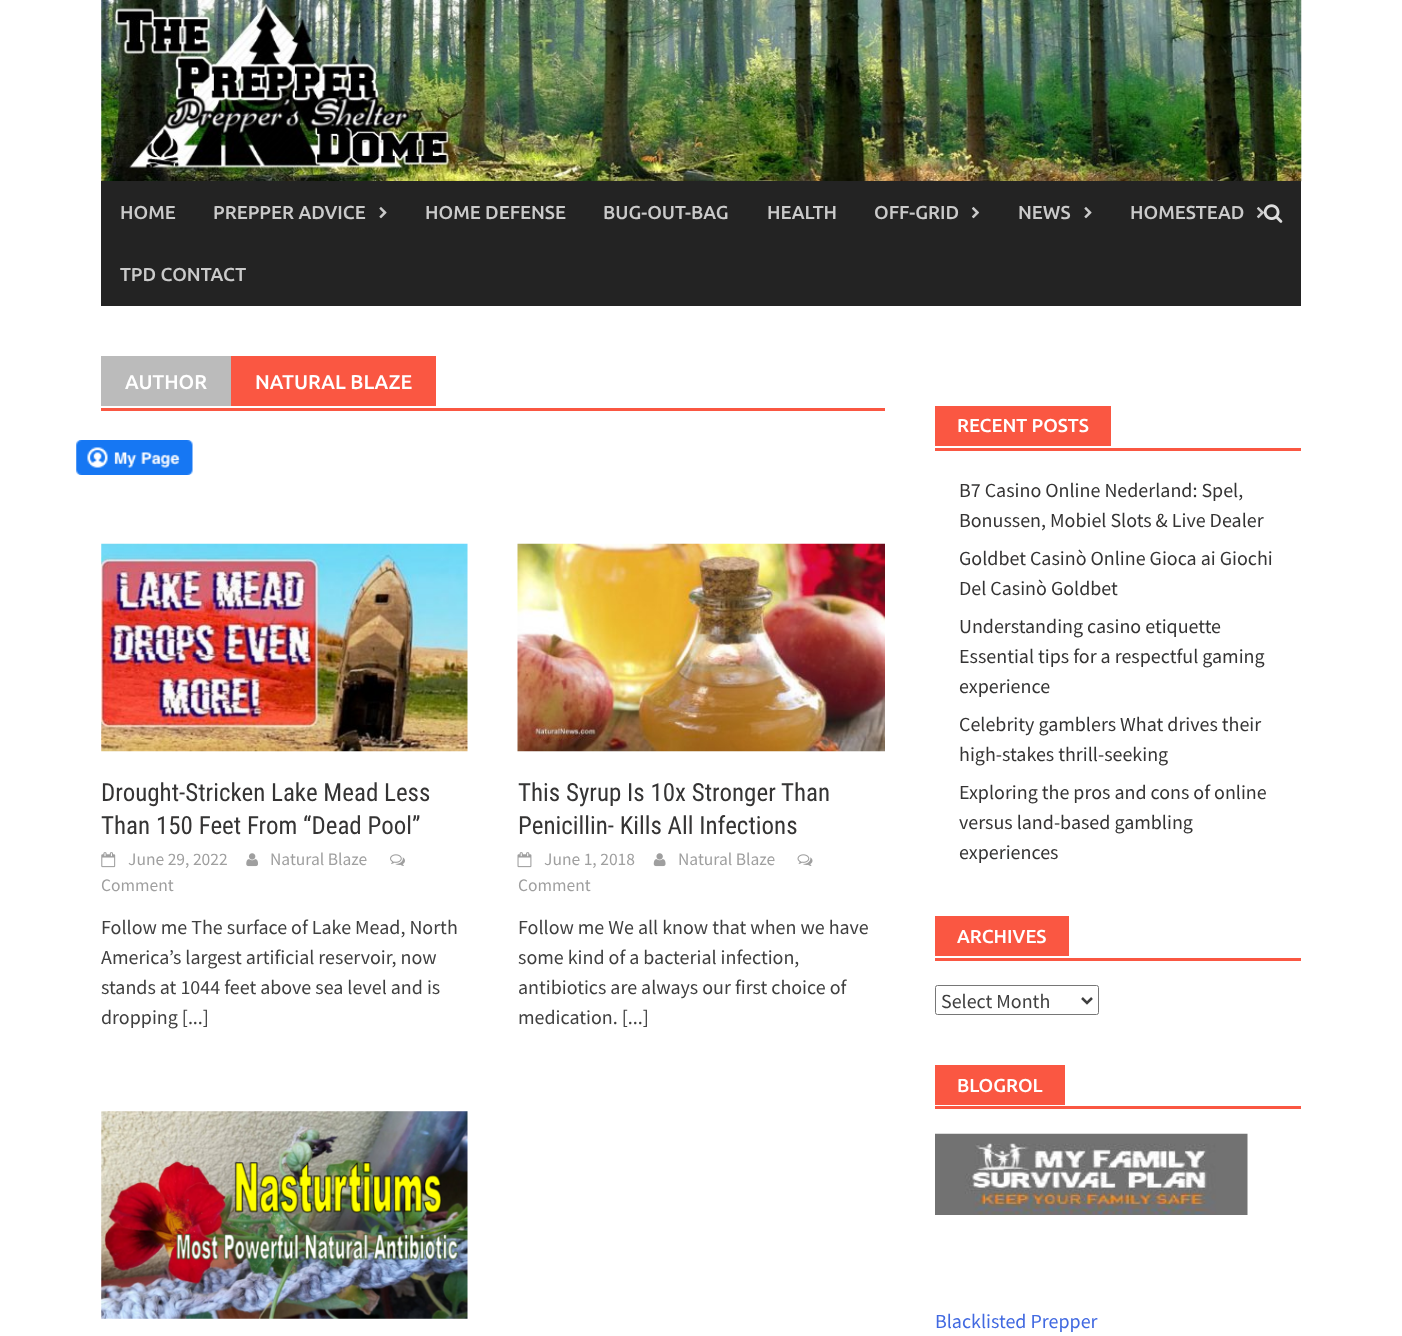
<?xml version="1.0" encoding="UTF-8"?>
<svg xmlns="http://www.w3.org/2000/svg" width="1402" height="1336">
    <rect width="100%" height="100%" fill="#FFFFFF"/>
    <image x="101" y="0" width="1201" height="182" href="img_01.png"/>
    <rect x="101" y="181" width="1200" height="125" fill="#232323"/>
    <text x="120" y="219" font-family="Ubuntu" font-size="18.75" font-weight="500" fill="#CACACA">HOME</text>
    <text x="213" y="219" font-family="Ubuntu" font-size="18.75" font-weight="500" fill="#CACACA">PREPPER ADVICE</text>
    <image x="379" y="207" width="8" height="12" href="img_02.png"/>
    <text x="425" y="219" font-family="Ubuntu" font-size="18.75" font-weight="500" fill="#CACACA">HOME DEFENSE</text>
    <text x="603" y="219" font-family="Ubuntu" font-size="18.75" font-weight="500" fill="#CACACA">BUG-OUT-BAG</text>
    <text x="767" y="219" font-family="Ubuntu" font-size="18.75" font-weight="500" fill="#CACACA">HEALTH</text>
    <text x="874" y="219" font-family="Ubuntu" font-size="18.75" font-weight="500" fill="#CACACA">OFF-GRID</text>
    <image x="971" y="207" width="9" height="12" href="img_03.png"/>
    <text x="1018" y="219" font-family="Ubuntu" font-size="18.75" font-weight="500" fill="#CACACA">NEWS</text>
    <image x="1084" y="207" width="8" height="12" href="img_02.png"/>
    <text x="1130" y="219" font-family="Ubuntu" font-size="18.75" font-weight="500" fill="#CACACA">HOMESTEAD</text>
    <image x="1256" y="207" width="8" height="12" href="img_04.png"/>
    <text x="120" y="281" font-family="Ubuntu" font-size="18.75" font-weight="500" fill="#CACACA">TPD CONTACT</text>
    <image x="1263" y="204" width="20" height="19" href="img_05.png"/>
    <rect x="101" y="408" width="784" height="3" fill="#FA5742"/>
    <rect x="231" y="356" width="205" height="50" fill="#FA5742"/>
    <rect x="101" y="356" width="130" height="50" fill="#BBBBBB"/>
    <text x="125" y="389" font-family="Ubuntu" font-size="20" font-weight="500" fill="#FFFFFF">AUTHOR</text>
    <text x="255" y="389" font-family="Ubuntu" font-size="20" font-weight="500" fill="#FFFFFF">NATURAL BLAZE</text>
    <image x="76" y="440" width="117" height="35" href="img_06.png"/>
    <image x="101" y="543" width="367" height="209" href="img_07.png"/>
    <text font-family="Roboto Condensed" font-size="25" fill="#353434">
        <tspan x="101" y="801">Drought-Stricken Lake Mead Less</tspan>
        <tspan x="101" y="834">Than 150 Feet From “Dead Pool”</tspan>
    </text>
    <image x="101" y="852" width="15" height="16" href="img_08.png"/>
    <text x="128" y="865" font-family="Source Sans Pro" font-size="17.5" fill="#9F9F9F">June 29, 2022</text>
    <image x="246" y="853" width="12" height="14" href="img_09.png"/>
    <text x="270" y="865" font-family="Source Sans Pro" font-size="17.5" fill="#9F9F9F">Natural Blaze</text>
    <image x="390" y="854" width="15" height="12" href="img_10.png"/>
    <text x="101" y="891" font-family="Source Sans Pro" font-size="17.5" fill="#9F9F9F">Comment</text>
    <text font-family="Source Sans Pro" font-size="20" fill="#404040">
        <tspan x="101" y="934">Follow me The surface of Lake Mead, North</tspan>
        <tspan x="101" y="964">America’s largest artificial reservoir, now</tspan>
        <tspan x="101" y="994">stands at 1044 feet above sea level and is</tspan>
        <tspan x="101" y="1024">dropping [...]</tspan>
    </text>
    <image x="517" y="543" width="368" height="209" href="img_11.png"/>
    <text font-family="Roboto Condensed" font-size="25" fill="#353434">
        <tspan x="518" y="801">This Syrup Is 10x Stronger Than</tspan>
        <tspan x="518" y="834">Penicillin- Kills All Infections</tspan>
    </text>
    <image x="517" y="852" width="15" height="16" href="img_12.png"/>
    <text x="544" y="865" font-family="Source Sans Pro" font-size="17.5" fill="#9F9F9F">June 1, 2018</text>
    <image x="653" y="853" width="13" height="14" href="img_13.png"/>
    <text x="678" y="865" font-family="Source Sans Pro" font-size="17.5" fill="#9F9F9F">Natural Blaze</text>
    <image x="797" y="854" width="16" height="12" href="img_14.png"/>
    <text x="518" y="891" font-family="Source Sans Pro" font-size="17.5" fill="#9F9F9F">Comment</text>
    <text font-family="Source Sans Pro" font-size="20" fill="#404040">
        <tspan x="518" y="934">Follow me We all know that when we have</tspan>
        <tspan x="518" y="964">some kind of a bacterial infection,</tspan>
        <tspan x="518" y="994">antibiotics are always our first choice of</tspan>
        <tspan x="518" y="1024">medication. [...]</tspan>
    </text>
    <image x="101" y="1111" width="367" height="208" href="img_15.png"/>
    <rect x="935" y="448" width="366" height="3" fill="#FA5742"/>
    <rect x="935" y="406" width="176" height="40" fill="#FA5742"/>
    <text x="957" y="432" font-family="Ubuntu" font-size="18.75" font-weight="500" fill="#FFFFFF">RECENT POSTS</text>
    <text font-family="Source Sans Pro" font-size="20" fill="#353434">
        <tspan x="959" y="497">B7 Casino Online Nederland: Spel,</tspan>
        <tspan x="959" y="527">Bonussen, Mobiel Slots &amp; Live Dealer</tspan>
        <tspan x="959" y="565">Goldbet Casinò Online Gioca ai Giochi</tspan>
        <tspan x="959" y="595">Del Casinò Goldbet</tspan>
        <tspan x="959" y="633">Understanding casino etiquette</tspan>
        <tspan x="959" y="663">Essential tips for a respectful gaming</tspan>
        <tspan x="959" y="693">experience</tspan>
        <tspan x="959" y="731">Celebrity gamblers What drives their</tspan>
        <tspan x="959" y="761">high-stakes thrill-seeking</tspan>
        <tspan x="959" y="799">Exploring the pros and cons of online</tspan>
        <tspan x="959" y="829">versus land-based gambling</tspan>
        <tspan x="959" y="859">experiences</tspan>
    </text>
    <rect x="935" y="958" width="366" height="3" fill="#FA5742"/>
    <rect x="935" y="916" width="134" height="40" fill="#FA5742"/>
    <text x="957" y="943" font-family="Ubuntu" font-size="18.75" font-weight="500" fill="#FFFFFF">ARCHIVES</text>
    <rect x="935.5" y="985.5" width="163" height="29" rx="2" fill="none" stroke="#767676"/>
    <path d="M 1082 998 L 1087 1003 L 1092 998" fill="none" stroke="#404040" stroke-width="2.5"/>
    <text x="941" y="1008" font-family="Source Sans Pro" font-size="20" fill="#404040">Select Month</text>
    <rect x="935" y="1106" width="366" height="3" fill="#FA5742"/>
    <rect x="935" y="1065" width="130" height="40" fill="#FA5742"/>
    <text x="957" y="1092" font-family="Ubuntu" font-size="18.75" font-weight="500" fill="#FFFFFF">BLOGROL</text>
    <image x="935" y="1133" width="313" height="82" href="img_16.png"/>
    <text x="935" y="1328" font-family="Source Sans Pro" font-size="20" fill="#4169E1">Blacklisted Prepper</text>
</svg>
